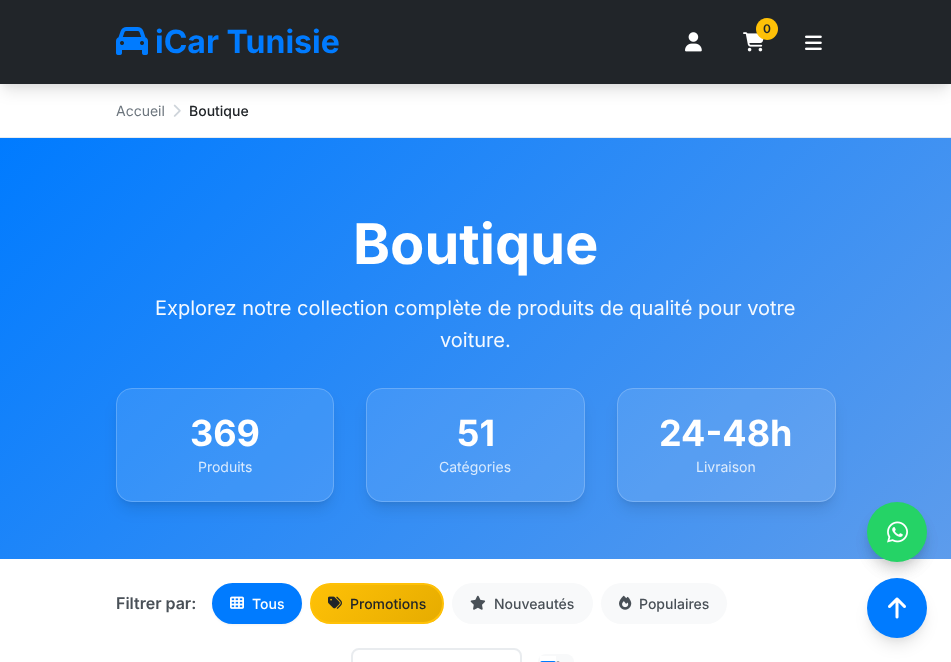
<?xml version="1.0" encoding="UTF-8"?>
<svg xmlns="http://www.w3.org/2000/svg" width="951" height="662">
    <defs>
        <filter id="blur1" x="-50%" y="-200%" width="200%" height="500%"><feGaussianBlur stdDeviation="3"/></filter>
        <filter id="blur2" x="-50%" y="-200%" width="200%" height="500%"><feGaussianBlur stdDeviation="7.5"/></filter>
        <linearGradient id="g1" gradientUnits="userSpaceOnUse" x1="132" y1="5.5" x2="819" y2="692"><stop offset="0" stop-color="#007BFF"/><stop offset="1" stop-color="#5D9CEC"/></linearGradient>
        <clipPath id="clip1"><path d="M 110 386 H 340 V 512 H 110 Z M 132 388 H 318 C 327 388 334 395 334 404 V 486 C 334 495 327 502 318 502 H 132 C 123 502 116 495 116 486 V 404 C 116 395 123 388 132 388 Z" clip-rule="evenodd"/></clipPath>
        <clipPath id="clip2"><path d="M 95 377 H 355 V 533 H 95 Z M 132 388 H 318 C 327 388 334 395 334 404 V 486 C 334 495 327 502 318 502 H 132 C 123 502 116 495 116 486 V 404 C 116 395 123 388 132 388 Z" clip-rule="evenodd"/></clipPath>
        <clipPath id="clip3"><path d="M 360 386 H 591 V 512 H 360 Z M 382 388 H 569 C 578 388 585 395 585 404 V 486 C 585 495 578 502 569 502 H 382 C 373 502 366 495 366 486 V 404 C 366 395 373 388 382 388 Z" clip-rule="evenodd"/></clipPath>
        <clipPath id="clip4"><path d="M 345 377 H 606 V 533 H 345 Z M 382 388 H 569 C 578 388 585 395 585 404 V 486 C 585 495 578 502 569 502 H 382 C 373 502 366 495 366 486 V 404 C 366 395 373 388 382 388 Z" clip-rule="evenodd"/></clipPath>
        <clipPath id="clip5"><path d="M 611 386 H 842 V 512 H 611 Z M 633 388 H 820 C 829 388 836 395 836 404 V 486 C 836 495 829 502 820 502 H 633 C 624 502 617 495 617 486 V 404 C 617 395 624 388 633 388 Z" clip-rule="evenodd"/></clipPath>
        <clipPath id="clip6"><path d="M 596 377 H 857 V 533 H 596 Z M 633 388 H 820 C 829 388 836 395 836 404 V 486 C 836 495 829 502 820 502 H 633 C 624 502 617 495 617 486 V 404 C 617 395 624 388 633 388 Z" clip-rule="evenodd"/></clipPath>
        <filter id="blur3" x="-50%" y="-200%" width="200%" height="500%"><feGaussianBlur stdDeviation="1"/></filter>
        <clipPath id="clip7"><rect x="310" y="583" width="134" height="41" rx="20.5"/></clipPath>
        <linearGradient id="g2" gradientUnits="userSpaceOnUse" x1="335" y1="562" x2="419" y2="645"><stop offset="0" stop-color="#FFC107"/><stop offset="1" stop-color="#E6AC00"/></linearGradient>
        <clipPath id="clip8"><path d="M 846 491 H 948 V 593 H 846 Z M 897 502 C 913.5 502 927 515.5 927 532 C 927 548.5 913.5 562 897 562 C 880.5 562 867 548.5 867 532 C 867 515.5 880.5 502 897 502 Z" clip-rule="evenodd"/></clipPath>
    </defs>
    <rect width="100%" height="100%" fill="#FFFFFF"/>
    <rect x="2" y="6" width="947" height="80" fill="#000000" fill-opacity="0.05" filter="url(#blur1)"/>
    <image x="173" y="104" width="8" height="13" href="img_05.png"/>
    <rect x="3" y="13" width="945" height="78" fill="#000000" fill-opacity="0.1" filter="url(#blur2)"/>
    <rect x="0" y="0" width="951" height="84" fill="#212529"/>
    <image x="116" y="27" width="32" height="28" href="img_01.png"/>
    <text x="155" y="53" font-family="Inter" font-size="32" font-weight="700" fill="#007BFF">iCar Tunisie</text>
    <image x="743" y="32" width="21" height="20" href="img_02.png"/>
    <circle cx="767" cy="29" r="11" fill="#FFC107"/>
    <text x="763" y="33" font-family="Inter" font-size="12" font-weight="600" fill="#212529">0</text>
    <image x="685" y="32" width="17" height="20" href="img_03.png"/>
    <image x="805" y="35" width="17" height="15" href="img_04.png"/>
    <rect x="0" y="137" width="951" height="1" fill="#E9ECEF"/>
    <text x="116" y="116" font-family="Inter" font-size="14" fill="#6C757D">Accueil</text>
    <text x="189" y="116" font-family="Inter" font-size="14" font-weight="500" fill="#212529">Boutique</text>
    <rect x="0" y="138" width="951" height="421" fill="url(#g1)"/>
    <text x="353" y="264" font-family="Inter" font-size="56" font-weight="700" fill="#FFFFFF">Boutique</text>
    <text x="155" y="315" font-family="Inter" font-size="20" fill="#F4F9FF">Explorez notre collection complète de produits de qualité pour votre</text>
    <text x="440" y="347" font-family="Inter" font-size="20" fill="#F4F9FF">voiture.</text>
    <g clip-path="url(#clip1)">
        <rect x="120" y="396" width="210" height="106" rx="12" fill="#000000" fill-opacity="0.1" filter="url(#blur1)"/>
    </g>
    <g clip-path="url(#clip2)">
        <rect x="119" y="401" width="212" height="108" rx="13" fill="#000000" fill-opacity="0.1" filter="url(#blur2)"/>
    </g>
    <rect x="116" y="388" width="218" height="114" rx="16" fill="#FFFFFF" fill-opacity="0.1"/>
    <rect x="116.5" y="388.5" width="217" height="113" rx="15.5" fill="none" stroke="#FFFFFF" stroke-opacity="0.2"/>
    <text x="190" y="446" font-family="Inter" font-size="36" font-weight="700" fill="#FFFFFF">369</text>
    <text x="198" y="472" font-family="Inter" font-size="14" fill="#D8EAFE">Produits</text>
    <g clip-path="url(#clip3)">
        <rect x="370" y="396" width="211" height="106" rx="12" fill="#000000" fill-opacity="0.1" filter="url(#blur1)"/>
    </g>
    <g clip-path="url(#clip4)">
        <rect x="369" y="401" width="213" height="108" rx="13" fill="#000000" fill-opacity="0.1" filter="url(#blur2)"/>
    </g>
    <rect x="366" y="388" width="219" height="114" rx="16" fill="#FFFFFF" fill-opacity="0.1"/>
    <rect x="366.5" y="388.5" width="218" height="113" rx="15.5" fill="none" stroke="#FFFFFF" stroke-opacity="0.2"/>
    <text x="457" y="446" font-family="Inter" font-size="36" font-weight="700" fill="#FFFFFF">51</text>
    <text x="439" y="472" font-family="Inter" font-size="14" fill="#D8EAFE">Catégories</text>
    <g clip-path="url(#clip5)">
        <rect x="621" y="396" width="211" height="106" rx="12" fill="#000000" fill-opacity="0.1" filter="url(#blur1)"/>
    </g>
    <g clip-path="url(#clip6)">
        <rect x="620" y="401" width="213" height="108" rx="13" fill="#000000" fill-opacity="0.1" filter="url(#blur2)"/>
    </g>
    <rect x="617" y="388" width="219" height="114" rx="16" fill="#FFFFFF" fill-opacity="0.1"/>
    <rect x="617.5" y="388.5" width="218" height="113" rx="15.5" fill="none" stroke="#FFFFFF" stroke-opacity="0.2"/>
    <text x="659" y="446" font-family="Inter" font-size="36" font-weight="700" fill="#FFFFFF">24-48h</text>
    <text x="696" y="472" font-family="Inter" font-size="14" fill="#DEECFC">Livraison</text>
    <text x="116" y="609" font-family="Inter" font-size="16" font-weight="600" fill="#495057">Filtrer par:</text>
    <rect x="212" y="584" width="90" height="41" rx="20.5" fill="#000000" fill-opacity="0.05" filter="url(#blur3)"/>
    <rect x="213" y="584" width="88" height="39" rx="19.5" fill="#007BFF" stroke="#007BFF" stroke-width="2"/>
    <image x="230" y="596" width="14" height="13" href="img_06.png"/>
    <text x="252" y="609" font-family="Inter" font-size="14" font-weight="500" fill="#FFFFFF">Tous</text>
    <g clip-path="url(#clip7)">
        <rect x="312" y="585" width="130" height="37" fill="url(#g2)"/>
    </g>
    <rect x="311" y="584" width="132" height="39" rx="19.5" fill="none" stroke="#FFC107" stroke-width="2"/>
    <image x="328" y="596" width="14" height="13" href="img_07.png"/>
    <text x="350" y="609" font-family="Inter" font-size="14" font-weight="500" fill="#212529">Promotions</text>
    <rect x="452" y="583" width="141" height="41" rx="20.5" fill="#F8F9FA"/>
    <image x="470" y="595" width="16" height="15" href="img_08.png"/>
    <text x="494" y="609" font-family="Inter" font-size="14" font-weight="500" fill="#495057">Nouveautés</text>
    <rect x="601" y="583" width="126" height="41" rx="20.5" fill="#F8F9FA"/>
    <image x="619" y="595" width="13" height="15" href="img_09.png"/>
    <text x="639" y="609" font-family="Inter" font-size="14" font-weight="500" fill="#495057">Populaires</text>
    <rect x="352" y="649" width="169" height="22" rx="7" fill="none" stroke="#E9ECEF" stroke-width="2"/>
    <rect x="538" y="654" width="36" height="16" rx="8" fill="#F8F9FA"/>
    <rect x="540" y="656" width="16" height="6" fill="#FFFFFF"/>
    <image x="540" y="661" width="16" height="1" href="img_10.png"/>
    <image x="556" y="661" width="4" height="1" href="img_11.png"/>
    <rect x="869" y="508" width="56" height="56" rx="28" fill="#000000" fill-opacity="0.05" filter="url(#blur1)"/>
    <rect x="870" y="515" width="54" height="54" rx="27" fill="#000000" fill-opacity="0.1" filter="url(#blur2)"/>
    <circle cx="897" cy="532" r="30" fill="#25D366"/>
    <g clip-path="url(#clip8)">
        <rect x="870" y="515" width="54" height="54" rx="27" fill="#000000" fill-opacity="0.1" filter="url(#blur2)"/>
    </g>
    <image x="887" y="521" width="21" height="22" href="img_12.png"/>
    <rect x="869" y="584" width="56" height="56" rx="28" fill="#000000" fill-opacity="0.05" filter="url(#blur1)"/>
    <rect x="870" y="591" width="54" height="54" rx="27" fill="#000000" fill-opacity="0.1" filter="url(#blur2)"/>
    <circle cx="897" cy="608" r="30" fill="#007BFF"/>
    <image x="888" y="597" width="18" height="22" href="img_13.png"/>
</svg>
